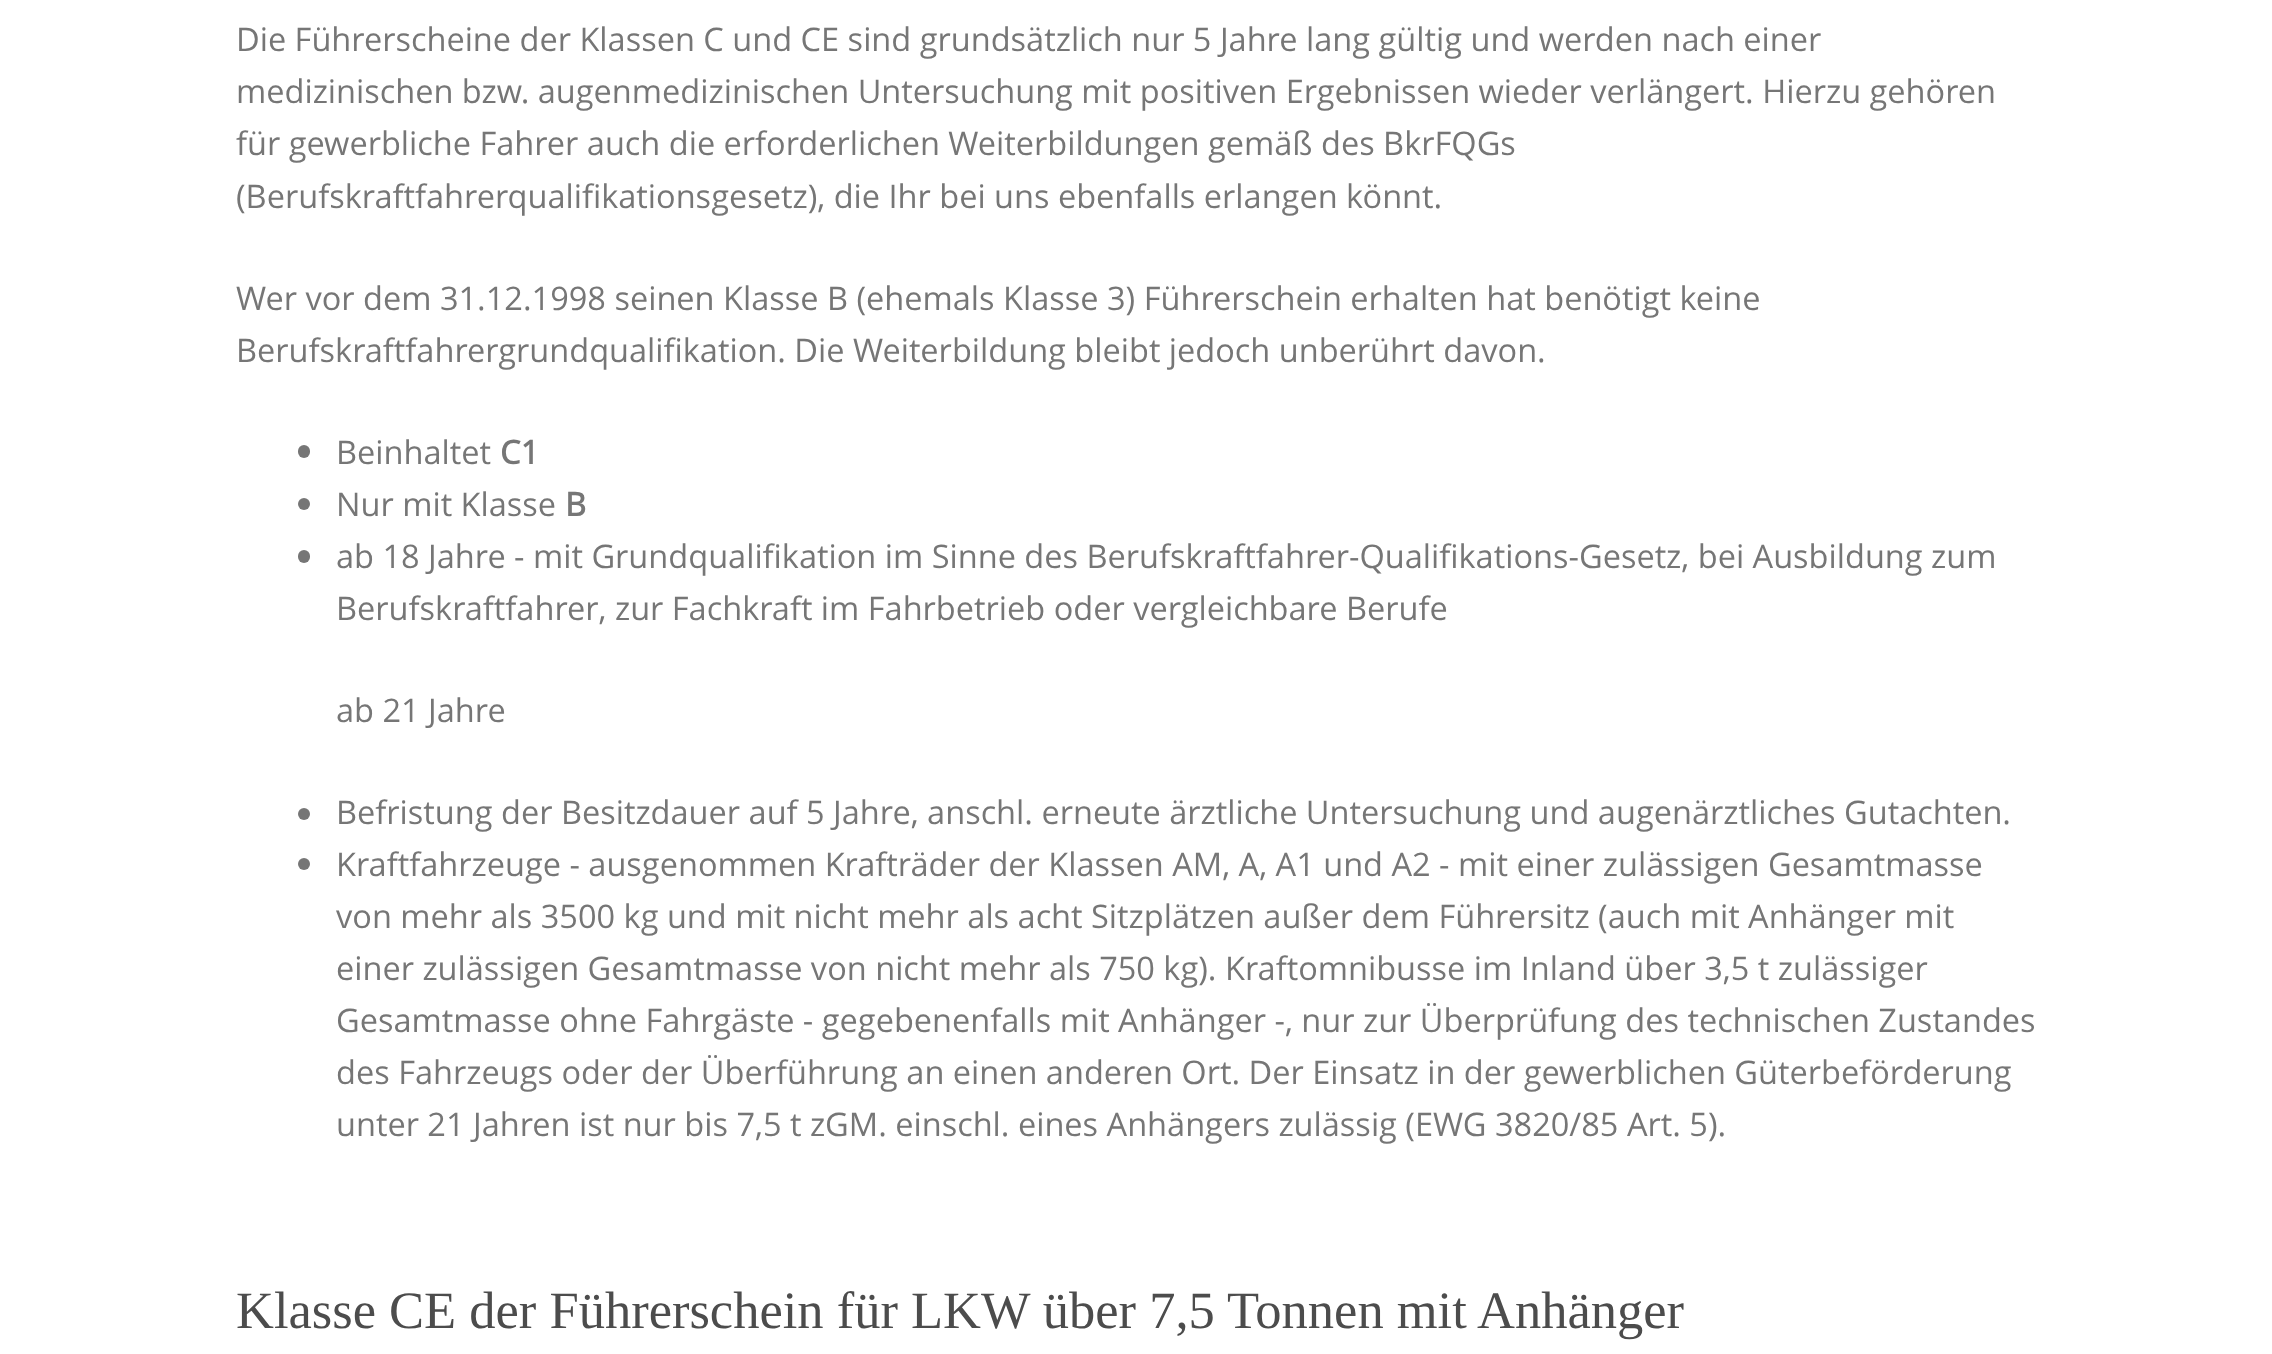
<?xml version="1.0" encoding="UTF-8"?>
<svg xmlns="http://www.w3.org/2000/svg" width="2272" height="1354">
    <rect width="100%" height="100%" fill="#FFFFFF"/>
    <text font-family="Open Sans" font-size="32.52" fill="#767676">
        <tspan x="236" y="51">Die Führerscheine der Klassen C und CE sind grundsätzlich nur 5 Jahre lang gültig und werden nach einer</tspan>
        <tspan x="236" y="103">medizinischen bzw. augenmedizinischen Untersuchung mit positiven Ergebnissen wieder verlängert. Hierzu gehören</tspan>
        <tspan x="236" y="155">für gewerbliche Fahrer auch die erforderlichen Weiterbildungen gemäß des BkrFQGs</tspan>
        <tspan x="236" y="208">(Berufskraftfahrerqualifikationsgesetz), die Ihr bei uns ebenfalls erlangen könnt.</tspan>
    </text>
    <text font-family="Open Sans" font-size="32.52" fill="#767676">
        <tspan x="236" y="310">Wer vor dem 31.12.1998 seinen Klasse B (ehemals Klasse 3) Führerschein erhalten hat benötigt keine</tspan>
        <tspan x="236" y="362">Berufskraftfahrergrundqualifikation. Die Weiterbildung bleibt jedoch unberührt davon.</tspan>
    </text>
    <rect x="298" y="445" width="12" height="13" rx="6" fill="#767676"/>
    <text x="336" y="464" font-family="Open Sans" font-size="32.52" fill="#767676">Beinhaltet</text>
    <text x="500" y="464" font-family="Open Sans" font-size="32.52" font-weight="700" fill="#767676">C1</text>
    <circle cx="304" cy="504" r="6" fill="#767676"/>
    <text x="336" y="516" font-family="Open Sans" font-size="32.52" fill="#767676">Nur mit Klasse</text>
    <text x="565" y="516" font-family="Open Sans" font-size="32.52" font-weight="700" fill="#767676">B</text>
    <rect x="298" y="550" width="12" height="13" rx="6" fill="#767676"/>
    <text font-family="Open Sans" font-size="32.52" fill="#767676">
        <tspan x="336" y="568">ab 18 Jahre - mit Grundqualifikation im Sinne des Berufskraftfahrer-Qualifikations-Gesetz, bei Ausbildung zum</tspan>
        <tspan x="336" y="620">Berufskraftfahrer, zur Fachkraft im Fahrbetrieb oder vergleichbare Berufe</tspan>
    </text>
    <text x="336" y="722" font-family="Open Sans" font-size="32.52" fill="#767676">ab 21 Jahre</text>
    <circle cx="304" cy="814" r="6" fill="#767676"/>
    <text x="336" y="824" font-family="Open Sans" font-size="32.52" fill="#767676">Befristung der Besitzdauer auf 5 Jahre, anschl. erneute ärztliche Untersuchung und augenärztliches Gutachten.</text>
    <circle cx="304" cy="864" r="6" fill="#767676"/>
    <text font-family="Open Sans" font-size="32.52" fill="#767676">
        <tspan x="336" y="876">Kraftfahrzeuge - ausgenommen Krafträder der Klassen AM, A, A1 und A2 - mit einer zulässigen Gesamtmasse</tspan>
        <tspan x="336" y="928">von mehr als 3500 kg und mit nicht mehr als acht Sitzplätzen außer dem Führersitz (auch mit Anhänger mit</tspan>
        <tspan x="336" y="980">einer zulässigen Gesamtmasse von nicht mehr als 750 kg). Kraftomnibusse im Inland über 3,5 t zulässiger</tspan>
        <tspan x="336" y="1032">Gesamtmasse ohne Fahrgäste - gegebenenfalls mit Anhänger -, nur zur Überprüfung des technischen Zustandes</tspan>
        <tspan x="336" y="1084">des Fahrzeugs oder der Überführung an einen anderen Ort. Der Einsatz in der gewerblichen Güterbeförderung</tspan>
        <tspan x="336" y="1136">unter 21 Jahren ist nur bis 7,5 t zGM. einschl. eines Anhängers zulässig (EWG 3820/85 Art. 5).</tspan>
    </text>
    <text x="236" y="1328" font-family="Liberation Serif" font-size="52.5" fill="#4C4C4C">Klasse CE der Führerschein für LKW über 7,5 Tonnen mit Anhänger</text>
</svg>
